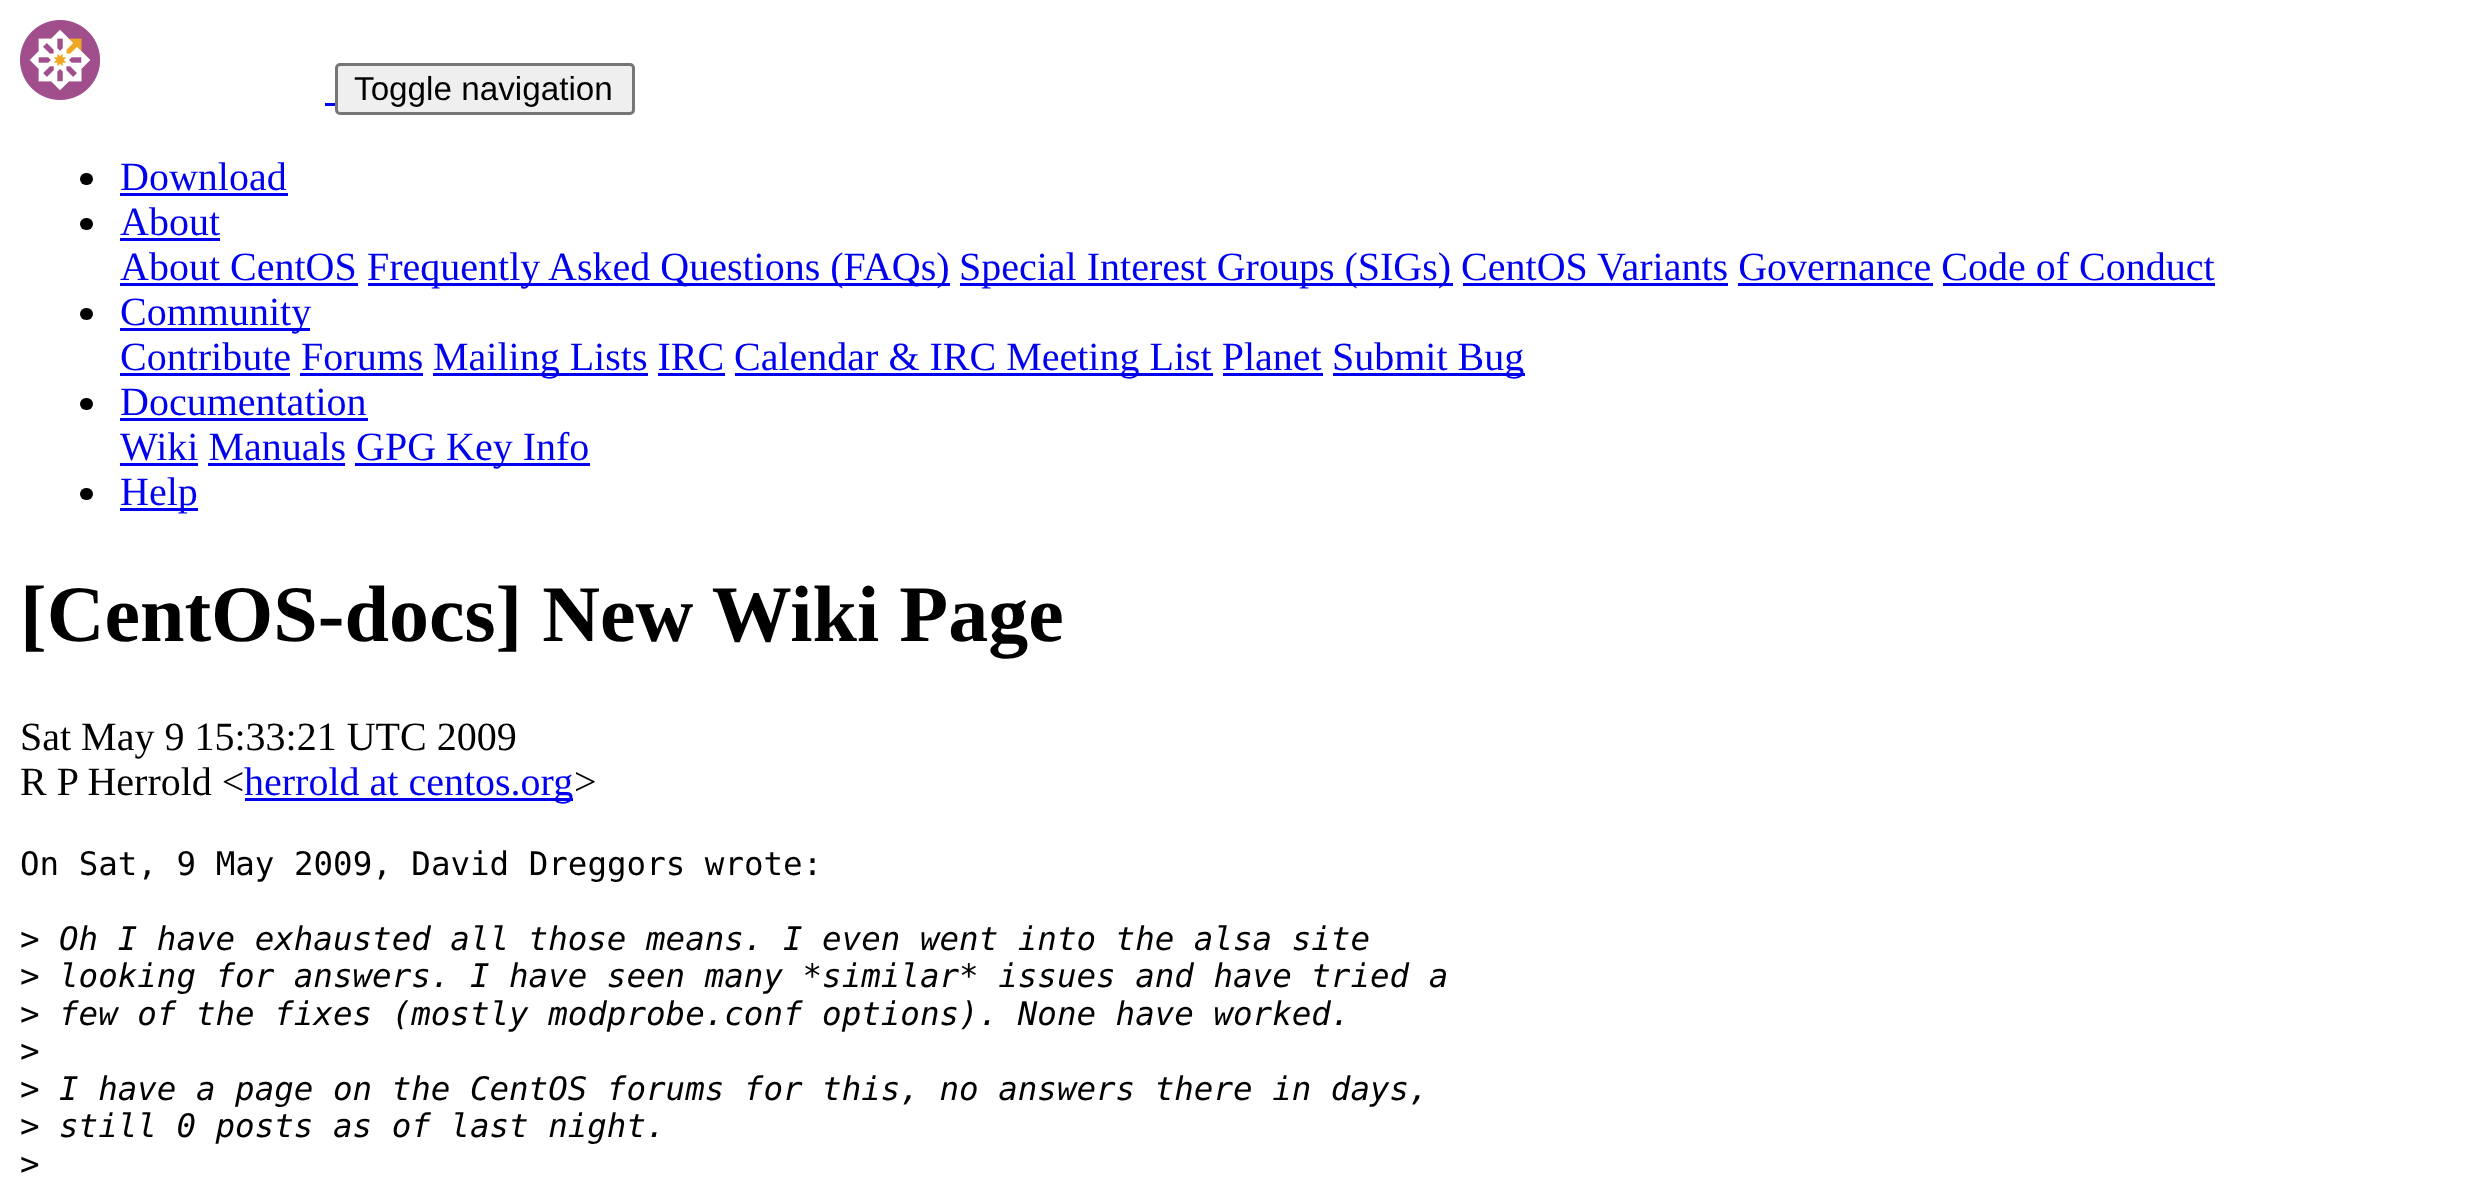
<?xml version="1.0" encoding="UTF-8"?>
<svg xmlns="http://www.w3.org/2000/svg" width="2491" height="1185">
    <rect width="100%" height="100%" fill="#FFFFFF"/>
    <image x="20" y="20" width="80" height="80" href="img_01.png"/>
    <rect x="325" y="103" width="10" height="3" fill="#0000EE"/>
    <rect x="336.5" y="64.5" width="297" height="49" rx="3.5" fill="#EFEFEF" stroke="#767676" stroke-width="3"/>
    <text x="354" y="100" font-family="Liberation Sans" font-size="33.25" fill="#000000">Toggle navigation</text>
    <rect x="80" y="173" width="13" height="12" rx="6" fill="#000000"/>
    <text x="120" y="190" font-family="Liberation Serif" font-size="40" fill="#0000EE">Download</text>
    <rect x="120" y="193" width="168" height="3" fill="#0000EE"/>
    <rect x="80" y="218" width="13" height="12" rx="6" fill="#000000"/>
    <text x="120" y="235" font-family="Liberation Serif" font-size="40" fill="#0000EE">About</text>
    <rect x="120" y="238" width="100" height="3" fill="#0000EE"/>
    <text x="120" y="280" font-family="Liberation Serif" font-size="40" fill="#0000EE">About CentOS</text>
    <rect x="120" y="283" width="238" height="3" fill="#0000EE"/>
    <rect x="368" y="283" width="582" height="3" fill="#0000EE"/>
    <text x="367" y="280" font-family="Liberation Serif" font-size="40" fill="#0000EE">Frequently Asked Questions (FAQs)</text>
    <rect x="960" y="283" width="493" height="3" fill="#0000EE"/>
    <text x="959" y="280" font-family="Liberation Serif" font-size="40" fill="#0000EE">Special Interest Groups (SIGs) CentOS Variants Governance Code of Conduct</text>
    <rect x="1463" y="283" width="265" height="3" fill="#0000EE"/>
    <rect x="1738" y="283" width="195" height="3" fill="#0000EE"/>
    <rect x="1943" y="283" width="272" height="3" fill="#0000EE"/>
    <rect x="80" y="308" width="13" height="12" rx="6" fill="#000000"/>
    <rect x="120" y="328" width="190" height="3" fill="#0000EE"/>
    <text font-family="Liberation Serif" font-size="40" fill="#0000EE">
        <tspan x="120" y="325">Community</tspan>
        <tspan x="120" y="370">Contribute Forums</tspan>
    </text>
    <rect x="120" y="373" width="170" height="3" fill="#0000EE"/>
    <rect x="433" y="373" width="215" height="3" fill="#0000EE"/>
    <text x="433" y="370" font-family="Liberation Serif" font-size="40" fill="#0000EE">Mailing Lists IRC</text>
    <rect x="735" y="373" width="478" height="3" fill="#0000EE"/>
    <text x="734" y="370" font-family="Liberation Serif" font-size="40" fill="#0000EE">Calendar &amp; IRC Meeting List Planet</text>
    <rect x="1333" y="373" width="192" height="3" fill="#0000EE"/>
    <text x="1332" y="370" font-family="Liberation Serif" font-size="40" fill="#0000EE">Submit Bug</text>
    <rect x="300" y="373" width="123" height="3" fill="#0000EE"/>
    <rect x="658" y="373" width="67" height="3" fill="#0000EE"/>
    <rect x="1223" y="373" width="100" height="3" fill="#0000EE"/>
    <rect x="80" y="398" width="13" height="12" rx="6" fill="#000000"/>
    <text x="120" y="415" font-family="Liberation Serif" font-size="40" fill="#0000EE">Documentation</text>
    <rect x="120" y="418" width="248" height="3" fill="#0000EE"/>
    <text x="120" y="460" font-family="Liberation Serif" font-size="40" fill="#0000EE">Wiki Manuals</text>
    <rect x="120" y="463" width="78" height="3" fill="#0000EE"/>
    <rect x="355" y="463" width="235" height="3" fill="#0000EE"/>
    <text x="356" y="460" font-family="Liberation Serif" font-size="40" fill="#0000EE">GPG Key Info</text>
    <rect x="208" y="463" width="137" height="3" fill="#0000EE"/>
    <rect x="80" y="488" width="13" height="12" rx="6" fill="#000000"/>
    <rect x="120" y="508" width="78" height="3" fill="#0000EE"/>
    <text x="120" y="505" font-family="Liberation Serif" font-size="40" fill="#0000EE">Help</text>
    <text x="20" y="641" font-family="Liberation Serif" font-size="80" font-weight="700" fill="#000000">[CentOS-docs] New Wiki Page</text>
    <text font-family="Liberation Serif" font-size="40" fill="#000000">
        <tspan x="20" y="750">Sat May 9 15:33:21 UTC 2009</tspan>
        <tspan x="20" y="795">R P Herrold &lt;</tspan>
    </text>
    <rect x="245" y="798" width="328" height="3" fill="#0000EE"/>
    <text x="244" y="795" font-family="Liberation Serif" font-size="40" fill="#0000EE">herrold at centos.org</text>
    <text x="574" y="795" font-family="Liberation Serif" font-size="40" fill="#000000">&gt;</text>
    <text x="20" y="875" font-family="DejaVu Sans Mono" font-size="32.5" fill="#000000">On Sat, 9 May 2009, David Dreggors wrote:</text>
    <text x="20" y="950" font-family="DejaVu Sans Mono" font-size="32.5" fill="#000000">&gt;</text>
    <text x="59" y="950" font-family="DejaVu Sans Mono" font-size="32.5" font-style="italic" fill="#000000">Oh I have exhausted all those means. I even went into the alsa site</text>
    <text x="20" y="987" font-family="DejaVu Sans Mono" font-size="32.5" fill="#000000">&gt;</text>
    <text x="59" y="987" font-family="DejaVu Sans Mono" font-size="32.5" font-style="italic" fill="#000000">looking for answers. I have seen many *similar* issues and have tried a</text>
    <text x="20" y="1025" font-family="DejaVu Sans Mono" font-size="32.5" fill="#000000">&gt;</text>
    <text x="59" y="1025" font-family="DejaVu Sans Mono" font-size="32.5" font-style="italic" fill="#000000">few of the fixes (mostly modprobe.conf options). None have worked.</text>
    <text font-family="DejaVu Sans Mono" font-size="32.5" fill="#000000">
        <tspan x="20" y="1062">&gt;</tspan>
        <tspan x="20" y="1100">&gt;</tspan>
    </text>
    <text x="59" y="1100" font-family="DejaVu Sans Mono" font-size="32.5" font-style="italic" fill="#000000">I have a page on the CentOS forums for this, no answers there in days,</text>
    <text x="20" y="1137" font-family="DejaVu Sans Mono" font-size="32.5" fill="#000000">&gt;</text>
    <text x="59" y="1137" font-family="DejaVu Sans Mono" font-size="32.5" font-style="italic" fill="#000000">still 0 posts as of last night.</text>
    <text x="20" y="1175" font-family="DejaVu Sans Mono" font-size="32.5" fill="#000000">&gt;</text>
</svg>
